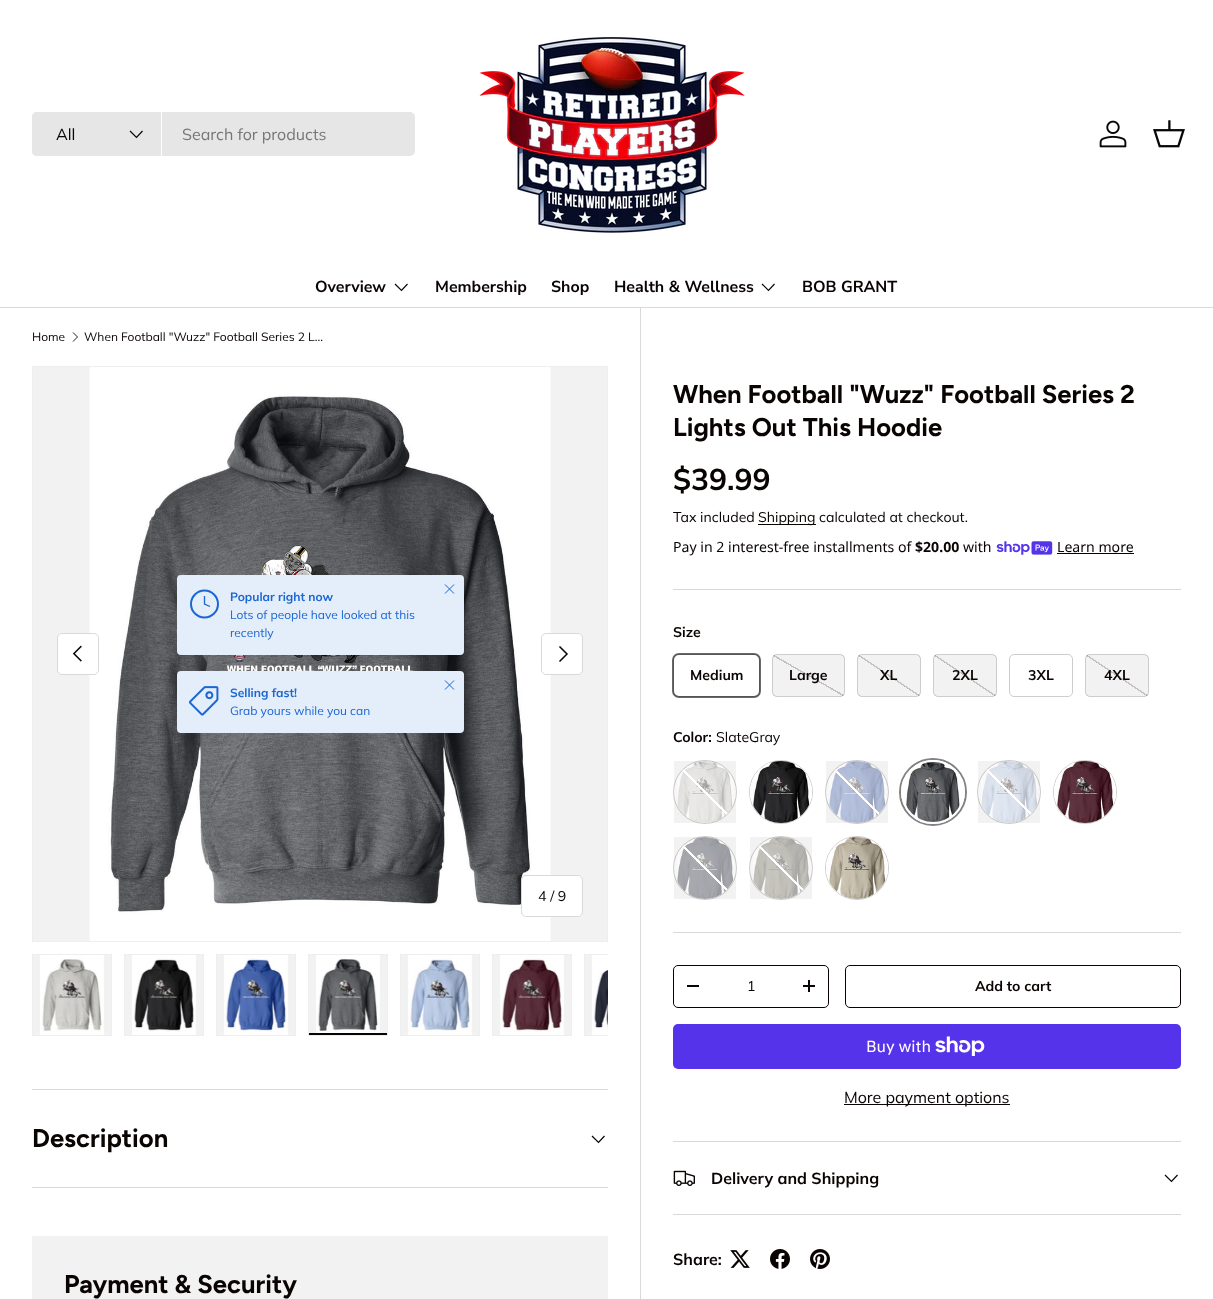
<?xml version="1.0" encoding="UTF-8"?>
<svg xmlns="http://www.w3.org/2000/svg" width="1213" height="1299">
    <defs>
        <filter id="blur1" x="-50%" y="-200%" width="200%" height="500%"><feGaussianBlur stdDeviation="2"/></filter>
        <clipPath id="clip1"><rect x="32" y="954" width="576" height="87"/></clipPath>
        <clipPath id="clip2"><rect x="772" y="654" width="73" height="43" rx="5"/></clipPath>
        <linearGradient id="g1" gradientUnits="userSpaceOnUse" x1="826" y1="645" x2="791" y2="706"><stop offset="0.49" stop-color="#FFFFFF"/><stop offset="0.49" stop-color="#CECDCC"/><stop offset="0.51" stop-color="#CECDCC"/><stop offset="0.51" stop-color="#FFFFFF"/></linearGradient>
        <clipPath id="clip3"><rect x="857" y="654" width="64" height="43" rx="5"/></clipPath>
        <linearGradient id="g2" gradientUnits="userSpaceOnUse" x1="908" y1="647" x2="870" y2="704"><stop offset="0.49" stop-color="#FFFFFF"/><stop offset="0.49" stop-color="#CECDCC"/><stop offset="0.51" stop-color="#CECDCC"/><stop offset="0.51" stop-color="#FFFFFF"/></linearGradient>
        <clipPath id="clip4"><rect x="933" y="654" width="64" height="43" rx="5"/></clipPath>
        <linearGradient id="g3" gradientUnits="userSpaceOnUse" x1="984" y1="647" x2="946" y2="704"><stop offset="0.49" stop-color="#FFFFFF"/><stop offset="0.49" stop-color="#CECDCC"/><stop offset="0.51" stop-color="#CECDCC"/><stop offset="0.51" stop-color="#FFFFFF"/></linearGradient>
        <clipPath id="clip5"><rect x="1085" y="654" width="64" height="43" rx="5"/></clipPath>
        <linearGradient id="g4" gradientUnits="userSpaceOnUse" x1="1136" y1="647" x2="1098" y2="704"><stop offset="0.49" stop-color="#FFFFFF"/><stop offset="0.49" stop-color="#CECDCC"/><stop offset="0.51" stop-color="#CECDCC"/><stop offset="0.51" stop-color="#FFFFFF"/></linearGradient>
        <linearGradient id="g5" gradientUnits="userSpaceOnUse" x1="736" y1="761" x2="674" y2="823"><stop offset="0.49" stop-color="#FFFFFF" stop-opacity="0"/><stop offset="0.49" stop-color="#FFFFFF"/><stop offset="0.51" stop-color="#FFFFFF"/><stop offset="0.51" stop-color="#FFFFFF" stop-opacity="0"/></linearGradient>
        <linearGradient id="g6" gradientUnits="userSpaceOnUse" x1="888" y1="761" x2="826" y2="823"><stop offset="0.49" stop-color="#FFFFFF" stop-opacity="0"/><stop offset="0.49" stop-color="#FFFFFF"/><stop offset="0.51" stop-color="#FFFFFF"/><stop offset="0.51" stop-color="#FFFFFF" stop-opacity="0"/></linearGradient>
        <linearGradient id="g7" gradientUnits="userSpaceOnUse" x1="1040" y1="761" x2="978" y2="823"><stop offset="0.49" stop-color="#FFFFFF" stop-opacity="0"/><stop offset="0.49" stop-color="#FFFFFF"/><stop offset="0.51" stop-color="#FFFFFF"/><stop offset="0.51" stop-color="#FFFFFF" stop-opacity="0"/></linearGradient>
        <linearGradient id="g8" gradientUnits="userSpaceOnUse" x1="736" y1="837" x2="674" y2="899"><stop offset="0.49" stop-color="#FFFFFF" stop-opacity="0"/><stop offset="0.49" stop-color="#FFFFFF"/><stop offset="0.51" stop-color="#FFFFFF"/><stop offset="0.51" stop-color="#FFFFFF" stop-opacity="0"/></linearGradient>
        <linearGradient id="g9" gradientUnits="userSpaceOnUse" x1="812" y1="837" x2="750" y2="899"><stop offset="0.49" stop-color="#FFFFFF" stop-opacity="0"/><stop offset="0.49" stop-color="#FFFFFF"/><stop offset="0.51" stop-color="#FFFFFF"/><stop offset="0.51" stop-color="#FFFFFF" stop-opacity="0"/></linearGradient>
    </defs>
    <rect width="100%" height="100%" fill="#FFFFFF"/>
    <rect x="0" y="307" width="1213" height="1" fill="#DADADA"/>
    <rect x="32" y="112" width="383" height="44" rx="5" fill="#E6E6E6"/>
    <path d="M 37 112 H 162 V 156 H 37 C 34 156 32 154 32 151 V 117 C 32 114 34 112 37 112 Z" fill="#E6E6E6"/>
    <rect x="161" y="112" width="1" height="44" fill="#FFFFFF"/>
    <text x="56" y="140" font-family="Muli" font-size="16" fill="#090302">All</text>
    <path d="M 142.5 131 L 136.5 137.5 L 130 131" fill="none" stroke="#070707" stroke-width="1.2"/>
    <text x="182" y="140" font-family="Muli" font-size="16" fill="#777777">Search for products</text>
    <image x="479" y="37" width="266" height="196" href="img_01.png"/>
    <image x="1099" y="120" width="28" height="28" href="img_02.png"/>
    <image x="1153" y="120" width="32" height="28" href="img_03.png"/>
    <text x="315" y="292" font-family="Nunito Sans" font-size="16" font-weight="700" fill="#090302">Overview</text>
    <path d="M 407.5 284 L 401.5 290.5 L 395 284" fill="none" stroke="#070707" stroke-width="1.2"/>
    <text x="435" y="292" font-family="Nunito Sans" font-size="16" font-weight="700" fill="#090302">Membership</text>
    <text x="551" y="292" font-family="Nunito Sans" font-size="16" font-weight="700" fill="#090302">Shop</text>
    <text x="614" y="292" font-family="Nunito Sans" font-size="16" font-weight="700" fill="#090302">Health &amp; Wellness</text>
    <path d="M 774.5 284 L 768.5 290.5 L 762 284" fill="none" stroke="#070707" stroke-width="1.2"/>
    <text x="802" y="292" font-family="Nunito Sans" font-size="16" font-weight="700" fill="#090302">BOB GRANT</text>
    <text x="32" y="341" font-family="Muli" font-size="12" fill="#090302">Home</text>
    <path d="M 73 332.5 L 77.5 337 L 73 341.5" fill="none" stroke="#090302" stroke-width="0.9"/>
    <text x="84" y="341" font-family="Muli" font-size="12" fill="#090302">When Football "Wuzz" Football Series 2 L…</text>
    <rect x="32" y="1089" width="576" height="1" fill="#DAD9D9"/>
    <rect x="32" y="1187" width="576" height="1" fill="#DAD9D9"/>
    <text x="32" y="1147" font-family="Figtree" font-size="25.6" font-weight="700" fill="#090302">Description</text>
    <path d="M 604.5 1136 L 598.5 1142.5 L 592 1136" fill="none" stroke="#090302" stroke-width="1.2"/>
    <rect x="32" y="1236" width="576" height="63" fill="#F2F2F2"/>
    <text x="64" y="1293" font-family="Figtree" font-size="25.6" font-weight="700" fill="#090302">Payment &amp; Security</text>
    <rect x="32.5" y="366.5" width="575" height="575" fill="none" stroke="#EEEEEE"/>
    <rect x="33" y="367" width="574" height="574" fill="#F2F2F2"/>
    <image x="89" y="367" width="462" height="574" href="img_04.png"/>
    <rect x="177" y="577" width="287" height="80" rx="4" fill="#212B36" fill-opacity="0.08" filter="url(#blur1)"/>
    <rect x="177" y="575" width="287" height="80" rx="4" fill="#E4EDFA"/>
    <circle cx="204.5" cy="604" r="13.5" fill="none" stroke="#1A66D2" stroke-width="2"/>
    <path d="M 204.5 596 V 604 L 210 606.5" fill="none" stroke="#1A66D2" stroke-width="1.3"/>
    <text x="230" y="601" font-family="Muli" font-size="12" font-weight="700" fill="#1A66D2">Popular right now</text>
    <text font-family="Muli" font-size="12" fill="#1A66D2">
        <tspan x="230" y="619">Lots of people have looked at this</tspan>
        <tspan x="230" y="637">recently</tspan>
    </text>
    <path d="M 445 593.5 L 454 584.5 M 445 584.5 L 454 593.5" fill="none" stroke="#1A66D2" stroke-linejoin="round"/>
    <rect x="177" y="671" width="287" height="62" rx="4" fill="#E4EDFA"/>
    <path d="M 445 689.5 L 454 680.5 M 445 680.5 L 454 689.5" fill="none" stroke="#1A66D2" stroke-linejoin="round"/>
    <image x="189" y="686" width="30" height="30" href="img_05.png"/>
    <text x="230" y="697" font-family="Muli" font-size="12" font-weight="700" fill="#1A66D2">Selling fast!</text>
    <text x="230" y="715" font-family="Muli" font-size="12" fill="#1A66D2">Grab yours while you can</text>
    <rect x="57" y="633" width="42" height="42" rx="5" fill="#FFFFFF"/>
    <rect x="57.5" y="633.5" width="41" height="41" rx="4.5" fill="none" stroke="#090302" stroke-opacity="0.15"/>
    <image x="72" y="645" width="10" height="17" href="img_06.png"/>
    <rect x="541" y="633" width="42" height="42" rx="5" fill="#FFFFFF"/>
    <rect x="541.5" y="633.5" width="41" height="41" rx="4.5" fill="none" stroke="#090302" stroke-opacity="0.15"/>
    <path d="M 559.5 646.5 L 567 654 L 559.5 661.5" fill="none" stroke="#090302" stroke-width="1.5"/>
    <rect x="521" y="875" width="62" height="42" rx="5" fill="#FFFFFF"/>
    <rect x="521.5" y="875.5" width="61" height="41" rx="4.5" fill="none" stroke="#090302" stroke-opacity="0.15"/>
    <text x="538" y="901" font-family="Muli" font-size="14.1" fill="#090302">4 / 9</text>
    <rect x="32.5" y="954.5" width="79" height="81" fill="#F2F2F2" stroke="#EEEEEE"/>
    <image x="40" y="955" width="64" height="80" href="img_07.png"/>
    <rect x="124.5" y="954.5" width="79" height="81" fill="#F2F2F2" stroke="#EEEEEE"/>
    <image x="132" y="955" width="64" height="80" href="img_08.png"/>
    <rect x="216.5" y="954.5" width="79" height="81" fill="#F2F2F2" stroke="#EEEEEE"/>
    <image x="224" y="955" width="64" height="80" href="img_09.png"/>
    <rect x="309" y="955" width="78" height="78" fill="#F2F2F2"/>
    <rect x="308.5" y="954.5" width="79" height="81" fill="none" stroke="#EEEEEE"/>
    <image x="316" y="955" width="64" height="78" href="img_10.png"/>
    <rect x="309" y="1033" width="78" height="2" fill="#090302"/>
    <rect x="400.5" y="954.5" width="79" height="81" fill="#F2F2F2" stroke="#EEEEEE"/>
    <image x="408" y="955" width="64" height="80" href="img_11.png"/>
    <rect x="492.5" y="954.5" width="79" height="81" fill="#F2F2F2" stroke="#EEEEEE"/>
    <image x="500" y="955" width="64" height="80" href="img_12.png"/>
    <rect x="585" y="955" width="8" height="80" fill="#F2F2F2"/>
    <g clip-path="url(#clip1)">
        <rect x="584.5" y="954.5" width="79" height="81" fill="none" stroke="#EEEEEE"/>
    </g>
    <image x="592" y="955" width="16" height="80" href="img_13.png"/>
    <rect x="640" y="308" width="1" height="991" fill="#DAD9D9"/>
    <text font-family="Figtree" font-size="25.6" font-weight="700" fill="#090302">
        <tspan x="673" y="403">When Football "Wuzz" Football Series 2</tspan>
        <tspan x="673" y="436">Lights Out This Hoodie</tspan>
    </text>
    <text x="673" y="490" font-family="Muli" font-size="30" font-weight="700" fill="#090302">$39.99</text>
    <text x="673" y="522" font-family="Muli" font-size="14.1" fill="#090302">Tax included</text>
    <rect x="758" y="524" width="58" height="1" fill="#090302"/>
    <text x="758" y="522" font-family="Muli" font-size="14.1" fill="#090302">Shipping calculated at checkout.</text>
    <text x="673" y="552" font-family="Noto Sans" font-size="14.1" fill="#090302">Pay in 2 interest-free installments of</text>
    <text x="915" y="552" font-family="Noto Sans" font-size="14.1" font-weight="700" fill="#090302">$20.00</text>
    <text x="963" y="552" font-family="Noto Sans" font-size="14.1" fill="#090302">with</text>
    <image x="996" y="541" width="57" height="14" href="img_14.png"/>
    <text x="1057" y="552" font-family="Noto Sans" font-size="14.1" fill="#090302">Learn more</text>
    <rect x="1057" y="553" width="77" height="1" fill="#090302"/>
    <rect x="673" y="589" width="508" height="1" fill="#DAD9D9"/>
    <text x="673" y="637" font-family="Muli" font-size="14.1" font-weight="700" fill="#090302">Size</text>
    <rect x="673.5" y="654.5" width="86" height="42" rx="4.5" fill="none" stroke="#CECDCC"/>
    <rect x="673" y="654" width="87" height="43" rx="6" fill="none" stroke="#090302" stroke-opacity="0.6" stroke-width="2"/>
    <text x="690" y="680" font-family="Muli" font-size="14.1" font-weight="700" fill="#090302">Medium</text>
    <g clip-path="url(#clip2)">
        <rect x="773" y="655" width="71" height="41" fill="url(#g1)"/>
    </g>
    <rect x="772.5" y="654.5" width="72" height="42" rx="4.5" fill="none" stroke="#090302" stroke-opacity="0.2"/>
    <rect x="773" y="655" width="71" height="41" fill="#090302" fill-opacity="0.05"/>
    <text x="789" y="680" font-family="Muli" font-size="14.1" font-weight="700" fill="#090302">Large</text>
    <g clip-path="url(#clip3)">
        <rect x="858" y="655" width="62" height="41" fill="url(#g2)"/>
    </g>
    <rect x="857.5" y="654.5" width="63" height="42" rx="4.5" fill="none" stroke="#090302" stroke-opacity="0.2"/>
    <rect x="858" y="655" width="62" height="41" fill="#090302" fill-opacity="0.05"/>
    <text x="880" y="680" font-family="Muli" font-size="14.1" font-weight="700" fill="#090302">XL</text>
    <g clip-path="url(#clip4)">
        <rect x="934" y="655" width="62" height="41" fill="url(#g3)"/>
    </g>
    <rect x="933.5" y="654.5" width="63" height="42" rx="4.5" fill="none" stroke="#090302" stroke-opacity="0.2"/>
    <rect x="934" y="655" width="62" height="41" fill="#090302" fill-opacity="0.05"/>
    <text x="952" y="680" font-family="Muli" font-size="14.1" font-weight="700" fill="#090302">2XL</text>
    <rect x="1009.5" y="654.5" width="63" height="42" rx="4.5" fill="none" stroke="#CECDCC"/>
    <text x="1028" y="680" font-family="Muli" font-size="14.1" font-weight="700" fill="#090302">3XL</text>
    <g clip-path="url(#clip5)">
        <rect x="1086" y="655" width="62" height="41" fill="url(#g4)"/>
    </g>
    <rect x="1085.5" y="654.5" width="63" height="42" rx="4.5" fill="none" stroke="#090302" stroke-opacity="0.2"/>
    <rect x="1086" y="655" width="62" height="41" fill="#090302" fill-opacity="0.05"/>
    <text x="1104" y="680" font-family="Muli" font-size="14.1" font-weight="700" fill="#090302">4XL</text>
    <text x="673" y="742" font-family="Muli" font-size="14.1" font-weight="700" fill="#090302">Color:</text>
    <text x="716" y="742" font-family="Muli" font-size="14.1" fill="#090302">SlateGray</text>
    <circle cx="705" cy="792" r="31.5" fill="none" stroke="#CECDCC"/>
    <rect x="674" y="761" width="62" height="62" fill="#090302" fill-opacity="0.05"/>
    <circle cx="705" cy="792" r="31" fill="#FFFFFF" fill-opacity="0.4"/>
    <image x="677" y="761" width="56" height="62" href="img_15.png"/>
    <circle cx="705" cy="792" r="31" fill="url(#g5)"/>
    <circle cx="781" cy="792" r="31.5" fill="none" stroke="#CECDCC"/>
    <circle cx="781" cy="792" r="31" fill="#FFFFFF"/>
    <image x="750" y="761" width="62" height="62" href="img_16.png"/>
    <circle cx="857" cy="792" r="31.5" fill="none" stroke="#CECDCC"/>
    <rect x="826" y="761" width="62" height="62" fill="#090302" fill-opacity="0.05"/>
    <circle cx="857" cy="792" r="31" fill="#FFFFFF" fill-opacity="0.4"/>
    <image x="829" y="761" width="57" height="62" href="img_17.png"/>
    <circle cx="857" cy="792" r="31" fill="url(#g6)"/>
    <circle cx="933" cy="792" r="33" fill="none" stroke="#848181" stroke-width="2"/>
    <circle cx="933" cy="792" r="31" fill="none" stroke="#FFFFFF" stroke-width="2"/>
    <image x="906" y="762" width="54" height="60" href="img_18.png"/>
    <circle cx="1009" cy="792" r="31.5" fill="none" stroke="#CECDCC"/>
    <rect x="978" y="761" width="62" height="62" fill="#090302" fill-opacity="0.05"/>
    <circle cx="1009" cy="792" r="31" fill="#FFFFFF" fill-opacity="0.4"/>
    <image x="981" y="761" width="56" height="62" href="img_19.png"/>
    <circle cx="1009" cy="792" r="31" fill="url(#g7)"/>
    <circle cx="1085" cy="792" r="31.5" fill="none" stroke="#CECDCC"/>
    <circle cx="1085" cy="792" r="31" fill="#FFFFFF"/>
    <image x="1054" y="761" width="62" height="62" href="img_20.png"/>
    <circle cx="705" cy="868" r="31.5" fill="none" stroke="#CECDCC"/>
    <rect x="674" y="837" width="62" height="62" fill="#090302" fill-opacity="0.05"/>
    <circle cx="705" cy="868" r="31" fill="#FFFFFF" fill-opacity="0.4"/>
    <image x="677" y="837" width="57" height="62" href="img_21.png"/>
    <circle cx="705" cy="868" r="31" fill="url(#g8)"/>
    <circle cx="781" cy="868" r="31.5" fill="none" stroke="#CECDCC"/>
    <rect x="750" y="837" width="62" height="62" fill="#090302" fill-opacity="0.05"/>
    <circle cx="781" cy="868" r="31" fill="#FFFFFF" fill-opacity="0.4"/>
    <image x="753" y="837" width="56" height="62" href="img_22.png"/>
    <circle cx="781" cy="868" r="31" fill="url(#g9)"/>
    <circle cx="857" cy="868" r="31.5" fill="none" stroke="#CECDCC"/>
    <circle cx="857" cy="868" r="31" fill="#FFFFFF"/>
    <image x="826" y="837" width="62" height="62" href="img_23.png"/>
    <rect x="673" y="932" width="508" height="1" fill="#DAD9D9"/>
    <rect x="673.5" y="965.5" width="155" height="42" rx="4.5" fill="none" stroke="#090302"/>
    <rect x="687" y="985" width="12" height="2" fill="#090302"/>
    <text x="747" y="991" font-family="Muli" font-size="14.1" fill="#090302">1</text>
    <rect x="803" y="985" width="12" height="2" fill="#090302"/>
    <rect x="808" y="980" width="2" height="12" fill="#090302"/>
    <rect x="845.5" y="965.5" width="335" height="42" rx="4.5" fill="none" stroke="#090302"/>
    <text x="975" y="991" font-family="Muli" font-size="14.1" font-weight="700" fill="#090302">Add to cart</text>
    <rect x="673" y="1024" width="508" height="45" rx="5" fill="#5433EB"/>
    <text x="866" y="1052" font-family="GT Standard" font-size="16" fill="#FFFFFF">Buy with</text>
    <image x="935" y="1036" width="50" height="20" href="img_24.png"/>
    <rect x="844" y="1104" width="166" height="1" fill="#090302"/>
    <text x="844" y="1103" font-family="Muli" font-size="16" fill="#090302">More payment options</text>
    <rect x="673" y="1141" width="508" height="1" fill="#DAD9D9"/>
    <rect x="673" y="1214" width="508" height="1" fill="#DAD9D9"/>
    <image x="673" y="1170" width="22" height="16" href="img_25.png"/>
    <text x="711" y="1184" font-family="Muli" font-size="16" font-weight="700" fill="#090302">Delivery and Shipping</text>
    <path d="M 1177.5 1175 L 1171.5 1181.5 L 1165 1175" fill="none" stroke="#090302" stroke-width="1.2"/>
    <text x="673" y="1265" font-family="Muli" font-size="16" font-weight="700" fill="#090302">Share:</text>
    <image x="730" y="1250" width="20" height="18" href="img_26.png"/>
    <image x="770" y="1249" width="20" height="20" href="img_27.png"/>
    <image x="810" y="1249" width="20" height="20" href="img_28.png"/>
</svg>
